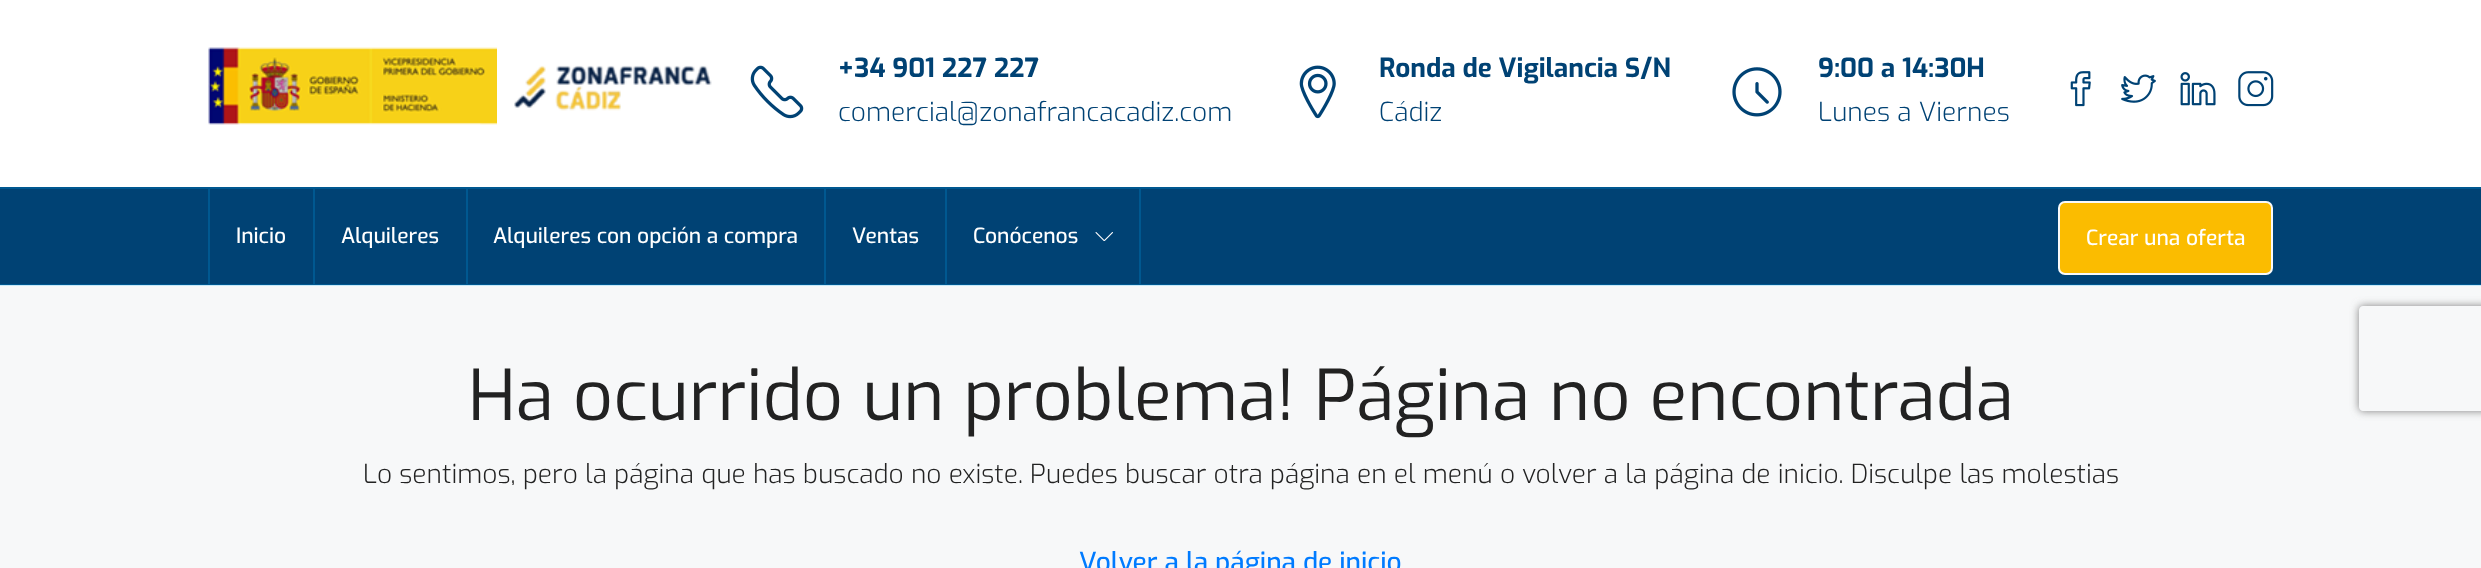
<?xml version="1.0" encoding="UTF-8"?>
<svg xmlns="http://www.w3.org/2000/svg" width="2481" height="568">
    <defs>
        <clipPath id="clip1"><path d="M 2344 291 H 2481 V 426 H 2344 Z M 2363 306 H 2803 C 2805 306 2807 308 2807 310 V 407 C 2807 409 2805 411 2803 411 H 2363 C 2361 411 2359 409 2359 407 V 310 C 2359 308 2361 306 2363 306 Z" clip-rule="evenodd"/></clipPath>
        <filter id="blur1" x="-50%" y="-200%" width="200%" height="500%"><feGaussianBlur stdDeviation="4.5"/></filter>
    </defs>
    <rect width="100%" height="100%" fill="#F7F8F9"/>
    <rect x="0" y="285" width="2481" height="1" fill="#C6E9FA"/>
    <rect x="0" y="0" width="2481" height="187" fill="#FFFFFF"/>
    <image x="208" y="47" width="289" height="78" href="img_01.png"/>
    <image x="514" y="65" width="198" height="46" href="img_02.png"/>
    <image x="750" y="65" width="54" height="54" href="img_03.png"/>
    <text x="838" y="77" font-family="Exo" font-size="26.25" font-weight="700" fill="#004274">+34 901 227 227</text>
    <text x="838" y="121" font-family="Exo" font-size="26.25" font-weight="300" fill="#004274">comercial@zonafrancacadiz.com</text>
    <image x="1299" y="65" width="37" height="54" href="img_04.png"/>
    <text x="1379" y="77" font-family="Exo" font-size="26.25" font-weight="700" fill="#004274">Ronda de Vigilancia S/N</text>
    <text x="1379" y="121" font-family="Exo" font-size="26.25" font-weight="300" fill="#004274">Cádiz</text>
    <image x="1732" y="67" width="50" height="50" href="img_05.png"/>
    <text x="1818" y="77" font-family="Exo" font-size="26.25" font-weight="700" fill="#004274">9:00 a 14:30H</text>
    <text x="1818" y="121" font-family="Exo" font-size="26.25" font-weight="300" fill="#004274">Lunes a Viernes</text>
    <image x="2070" y="71" width="21" height="36" href="img_06.png"/>
    <image x="2121" y="74" width="35" height="29" href="img_07.png"/>
    <image x="2180" y="72" width="36" height="34" href="img_08.png"/>
    <image x="2238" y="71" width="36" height="36" href="img_09.png"/>
    <rect x="0" y="189" width="2481" height="95" fill="#004274"/>
    <rect x="0" y="284" width="2481" height="1" fill="#005890"/>
    <rect x="0" y="187" width="2481" height="2" fill="#005890"/>
    <rect x="313" y="189" width="2" height="95" fill="#005890"/>
    <rect x="208" y="189" width="2" height="95" fill="#005890"/>
    <text x="236" y="243" font-family="Exo" font-size="21" font-weight="500" fill="#FFFFFF">Inicio</text>
    <rect x="466" y="189" width="2" height="95" fill="#005890"/>
    <text x="341" y="243" font-family="Exo" font-size="21" font-weight="500" fill="#FFFFFF">Alquileres</text>
    <rect x="824" y="189" width="2" height="95" fill="#005890"/>
    <text x="493" y="243" font-family="Exo" font-size="21" font-weight="500" fill="#FFFFFF">Alquileres con opción a compra</text>
    <rect x="945" y="189" width="2" height="95" fill="#005890"/>
    <text x="852" y="243" font-family="Exo" font-size="21" font-weight="500" fill="#FFFFFF">Ventas</text>
    <rect x="1139" y="189" width="2" height="95" fill="#005890"/>
    <text x="973" y="243" font-family="Exo" font-size="21" font-weight="500" fill="#FFFFFF">Conócenos</text>
    <image x="1095" y="232" width="18" height="9" href="img_10.png"/>
    <rect x="2059" y="202" width="213" height="72" rx="6" fill="#FBBC00" stroke="#F9F9F9" stroke-width="2"/>
    <text x="2086" y="245" font-family="Exo" font-size="21" font-weight="500" fill="#FFFFFF">Crear una oferta</text>
    <text x="468" y="420" font-family="Exo" font-size="70" fill="#222222">Ha ocurrido un problema! Página no encontrada</text>
    <text x="363" y="483" font-family="Exo" font-size="26.25" font-weight="300" fill="#222222">Lo sentimos, pero la página que has buscado no existe. Puedes buscar otra página en el menú o volver a la página de inicio. Disculpe las molestias</text>
    <text x="1079" y="571" font-family="Exo" font-size="26.25" font-weight="500" fill="#007BFF">Volver a la página de inicio</text>
    <g clip-path="url(#clip1)">
        <rect x="2359" y="306" width="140" height="105" rx="4" fill="#808080" filter="url(#blur1)"/>
    </g>
</svg>
